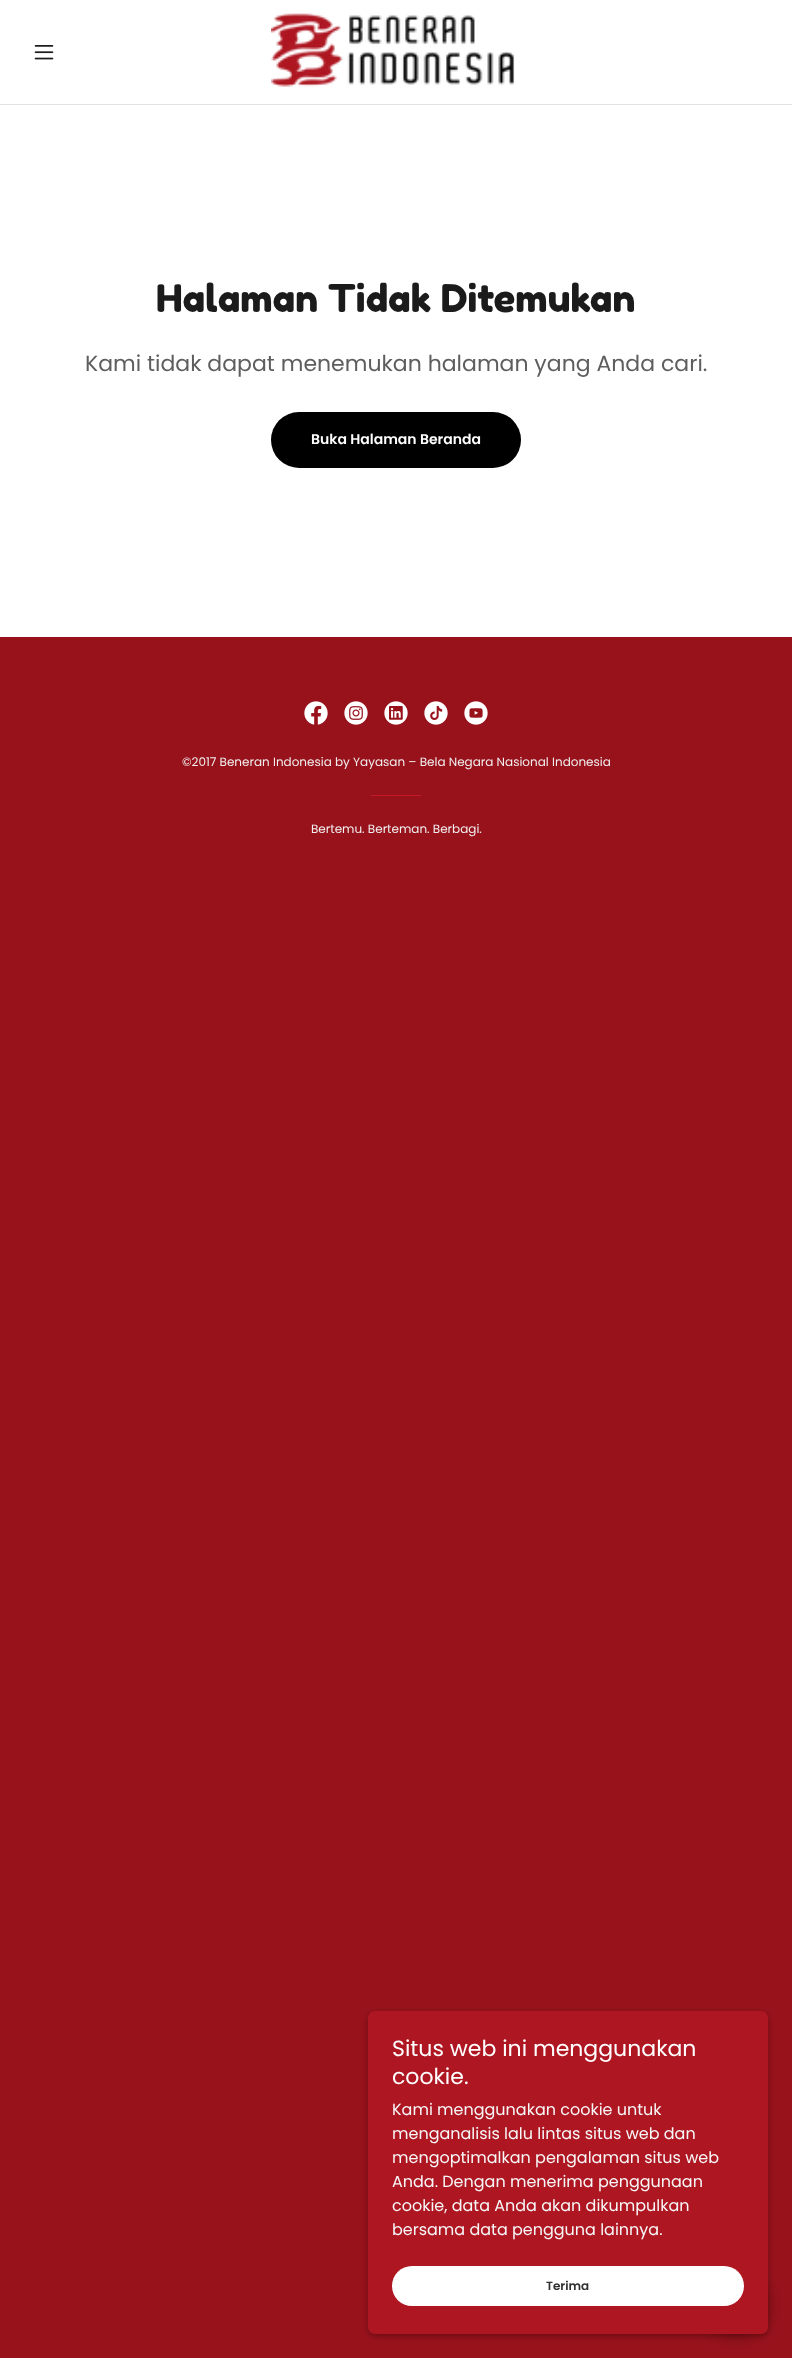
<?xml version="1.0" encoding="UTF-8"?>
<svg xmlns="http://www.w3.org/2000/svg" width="792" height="2358">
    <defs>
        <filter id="blur1" x="-50%" y="-200%" width="200%" height="500%"><feGaussianBlur stdDeviation="3"/></filter>
        <filter id="blur2" x="-50%" y="-200%" width="200%" height="500%"><feGaussianBlur stdDeviation="9"/></filter>
    </defs>
    <rect width="100%" height="100%" fill="#98121C"/>
    <rect x="0" y="0" width="792" height="104" fill="#FFFFFF"/>
    <image x="34" y="45" width="20" height="15" href="img_01.png"/>
    <image x="271" y="13" width="244" height="74" href="img_02.png"/>
    <rect x="0" y="104" width="792" height="1" fill="#E2E2E2"/>
    <rect x="0" y="105" width="792" height="532" fill="#FFFFFF"/>
    <text x="156" y="312" font-family="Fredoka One" font-size="38" fill="#1B1B1B">Halaman Tidak Ditemukan</text>
    <text x="85" y="371" font-family="Poppins" font-size="22" fill="#5E5E5E">Kami tidak dapat menemukan halaman yang Anda cari.</text>
    <rect x="271" y="412" width="250" height="56" rx="28" fill="#000000"/>
    <text x="311" y="444" font-family="Poppins" font-size="14" font-weight="600" fill="#FFFFFF">Buka Halaman Beranda</text>
    <image x="304" y="701" width="24" height="24" href="img_03.png"/>
    <image x="344" y="701" width="24" height="24" href="img_04.png"/>
    <image x="384" y="701" width="24" height="24" href="img_05.png"/>
    <image x="424" y="701" width="24" height="24" href="img_06.png"/>
    <image x="464" y="701" width="24" height="24" href="img_07.png"/>
    <text x="182" y="766" font-family="Poppins" font-size="12" fill="#F0EEEE">©2017 Beneran Indonesia by Yayasan – Bela Negara Nasional Indonesia</text>
    <rect x="371" y="795" width="50" height="1" fill="#C41A28"/>
    <text x="311" y="833" font-family="Poppins" font-size="12" fill="#F0EEEE">Bertemu. Berteman. Berbagi.</text>
    <rect x="368" y="2013" width="400" height="323" rx="7" fill="#000000" fill-opacity="0.3" filter="url(#blur1)"/>
    <rect x="703" y="2272" width="65" height="65" rx="32.5" fill="#000000" fill-opacity="0.25" filter="url(#blur2)"/>
    <rect x="368" y="2011" width="400" height="323" rx="7" fill="#AE1622"/>
    <text font-family="Poppins" font-size="22" fill="#FFFFFF">
        <tspan x="392" y="2056">Situs web ini menggunakan</tspan>
        <tspan x="392" y="2084">cookie.</tspan>
    </text>
    <text font-family="Poppins" font-size="16" fill="#F7F7F7">
        <tspan x="392" y="2115">Kami menggunakan cookie untuk</tspan>
        <tspan x="392" y="2139">menganalisis lalu lintas situs web dan</tspan>
        <tspan x="392" y="2163">mengoptimalkan pengalaman situs web</tspan>
        <tspan x="392" y="2187">Anda. Dengan menerima penggunaan</tspan>
        <tspan x="392" y="2211">cookie, data Anda akan dikumpulkan</tspan>
        <tspan x="392" y="2235">bersama data pengguna lainnya.</tspan>
    </text>
    <rect x="392" y="2266" width="352" height="40" rx="20" fill="#FFFFFF"/>
    <text x="546" y="2290" font-family="Poppins" font-size="12" font-weight="600" fill="#303030">Terima</text>
</svg>
